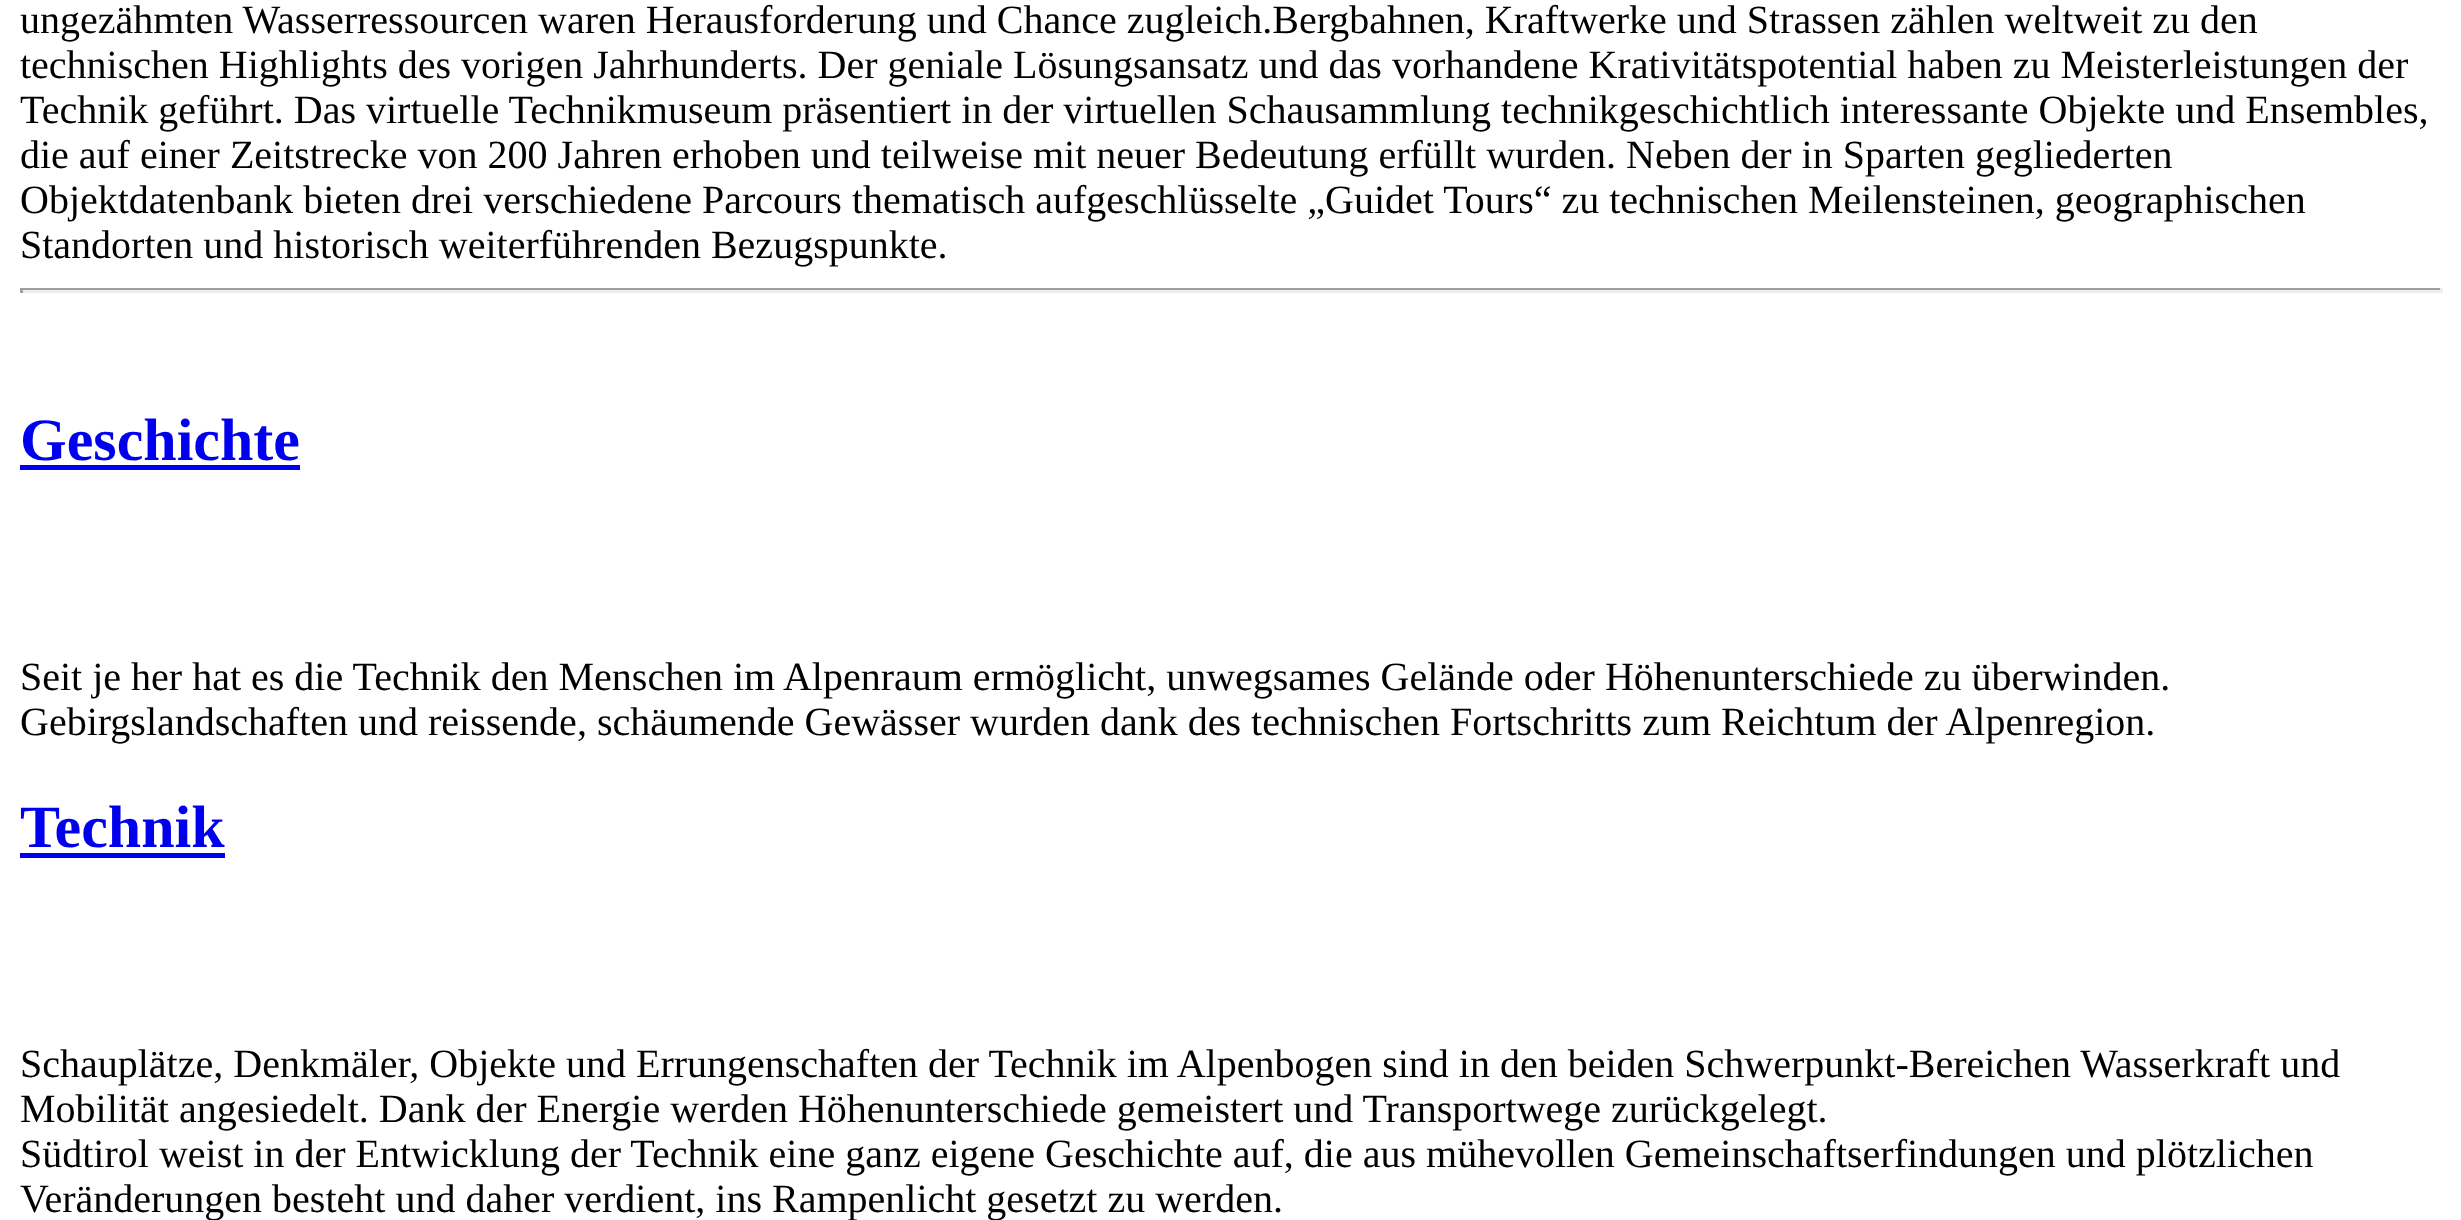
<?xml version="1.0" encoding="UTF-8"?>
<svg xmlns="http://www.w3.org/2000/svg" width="2461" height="1220">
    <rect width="100%" height="100%" fill="#FFFFFF"/>
    <text font-family="Liberation Serif" font-size="40" fill="#000000">
        <tspan x="20" y="33">ungezähmten Wasserressourcen waren Herausforderung und Chance zugleich.Bergbahnen, Kraftwerke und Strassen zählen weltweit zu den</tspan>
        <tspan x="20" y="78">technischen Highlights des vorigen Jahrhunderts. Der geniale Lösungsansatz und das vorhandene Krativitätspotential haben zu Meisterleistungen der</tspan>
        <tspan x="20" y="123">Technik geführt. Das virtuelle Technikmuseum präsentiert in der virtuellen Schausammlung technikgeschichtlich interessante Objekte und Ensembles,</tspan>
        <tspan x="20" y="168">die auf einer Zeitstrecke von 200 Jahren erhoben und teilweise mit neuer Bedeutung erfüllt wurden. Neben der in Sparten gegliederten</tspan>
        <tspan x="20" y="213">Objektdatenbank bieten drei verschiedene Parcours thematisch aufgeschlüsselte „Guidet Tours“ zu technischen Meilensteinen, geographischen</tspan>
        <tspan x="20" y="258">Standorten und historisch weiterführenden Bezugspunkte.</tspan>
    </text>
    <rect x="20" y="288" width="2423" height="2" fill="#9F9F9F"/>
    <rect x="2440" y="288" width="3" height="5" fill="#EEEEEE"/>
    <rect x="20" y="290" width="2423" height="3" fill="#EEEEEE"/>
    <rect x="20" y="288" width="3" height="5" fill="#9F9F9F"/>
    <text x="20" y="460" font-family="Liberation Serif" font-size="60" font-weight="700" fill="#0000EE">Geschichte</text>
    <rect x="20" y="465" width="280" height="5" fill="#0000EE"/>
    <text font-family="Liberation Serif" font-size="40" fill="#000000">
        <tspan x="20" y="690">Seit je her hat es die Technik den Menschen im Alpenraum ermöglicht, unwegsames Gelände oder Höhenunterschiede zu überwinden.</tspan>
        <tspan x="20" y="735">Gebirgslandschaften und reissende, schäumende Gewässer wurden dank des technischen Fortschritts zum Reichtum der Alpenregion.</tspan>
    </text>
    <text x="20" y="847" font-family="Liberation Serif" font-size="60" font-weight="700" fill="#0000EE">Technik</text>
    <rect x="20" y="853" width="205" height="5" fill="#0000EE"/>
    <text font-family="Liberation Serif" font-size="40" fill="#000000">
        <tspan x="20" y="1077">Schauplätze, Denkmäler, Objekte und Errungenschaften der Technik im Alpenbogen sind in den beiden Schwerpunkt-Bereichen Wasserkraft und</tspan>
        <tspan x="20" y="1122">Mobilität angesiedelt. Dank der Energie werden Höhenunterschiede gemeistert und Transportwege zurückgelegt.</tspan>
        <tspan x="20" y="1167">Südtirol weist in der Entwicklung der Technik eine ganz eigene Geschichte auf, die aus mühevollen Gemeinschaftserfindungen und plötzlichen</tspan>
        <tspan x="20" y="1212">Veränderungen besteht und daher verdient, ins Rampenlicht gesetzt zu werden.</tspan>
    </text>
</svg>
